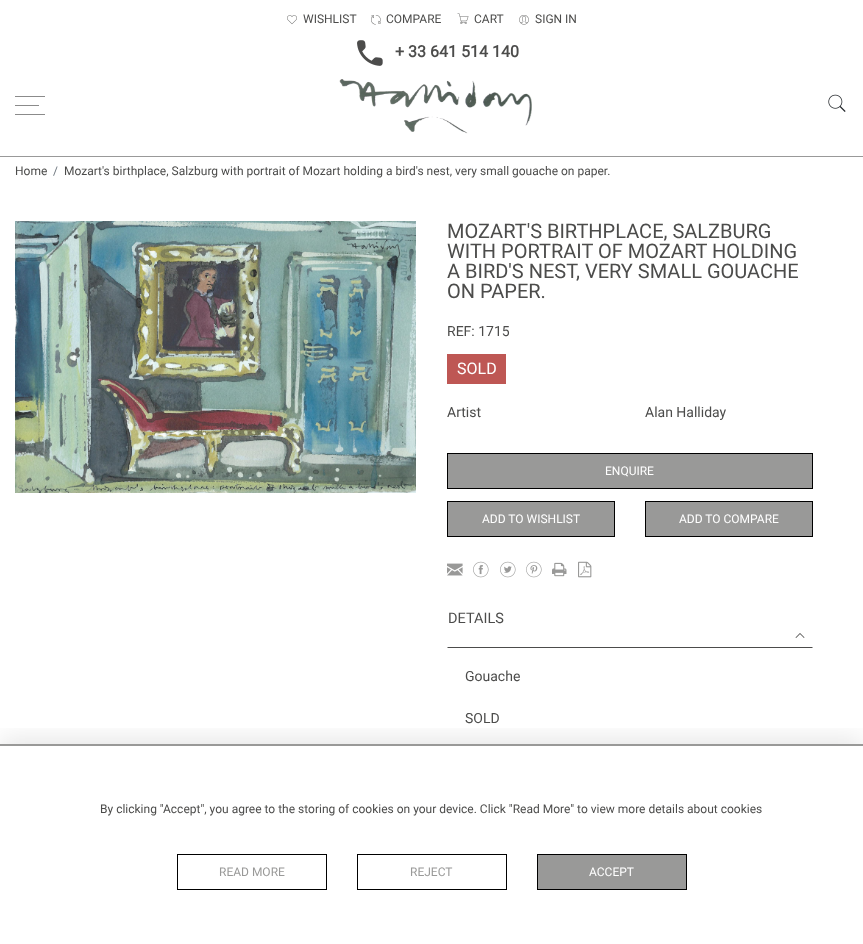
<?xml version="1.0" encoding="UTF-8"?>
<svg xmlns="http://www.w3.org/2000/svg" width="863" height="944">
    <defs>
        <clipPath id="clip1"><rect x="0" y="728" width="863" height="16"/></clipPath>
        <filter id="blur1" x="-50%" y="-200%" width="200%" height="500%"><feGaussianBlur stdDeviation="13"/></filter>
    </defs>
    <rect width="100%" height="100%" fill="#FFFFFF"/>
    <rect x="0" y="156" width="863" height="1" fill="#999999"/>
    <image x="287" y="15" width="10" height="10" href="img_01.png"/>
    <text x="303" y="23" font-family="Roboto" font-size="12" fill="#4C4C4B">WISHLIST</text>
    <image x="371" y="15" width="10" height="10" href="img_02.png"/>
    <text x="386" y="23" font-family="Roboto" font-size="12" fill="#4C4C4B">COMPARE</text>
    <image x="457" y="13" width="12" height="11" href="img_03.png"/>
    <text x="474" y="23" font-family="Roboto" font-size="12" fill="#4C4C4B">CART</text>
    <image x="519" y="15" width="10" height="10" href="img_04.png"/>
    <text x="535" y="23" font-family="Roboto" font-size="12" fill="#4C4C4B">SIGN IN</text>
    <image x="357" y="40" width="26" height="26" href="img_05.png"/>
    <text x="395" y="57" font-family="Roboto" font-size="16" font-weight="700" fill="#4C4C4B">+ 33 641 514 140</text>
    <rect x="15" y="96" width="30" height="1" fill="#8B8B8B"/>
    <rect x="15" y="114" width="30" height="1" fill="#8B8B8B"/>
    <rect x="15" y="105" width="24" height="1" fill="#8B8B8B"/>
    <image x="339" y="79" width="193" height="55" href="img_06.png"/>
    <image x="828" y="94" width="18" height="18" href="img_07.png"/>
    <text x="15" y="175" font-family="Roboto" font-size="12" fill="#4C4C4B">Home</text>
    <text x="53" y="175" font-family="Roboto" font-size="12" fill="#6C757D">/</text>
    <text x="64" y="175" font-family="Roboto" font-size="12" fill="#4C4C4B">Mozart's birthplace, Salzburg with portrait of Mozart holding a bird's nest, very small gouache on paper.</text>
    <image x="15" y="221" width="401" height="272" href="img_08.png"/>
    <text font-family="Roboto" font-size="20" fill="#4C4C4B">
        <tspan x="447" y="238">MOZART'S BIRTHPLACE, SALZBURG</tspan>
        <tspan x="447" y="258">WITH PORTRAIT OF MOZART HOLDING</tspan>
        <tspan x="447" y="278">A BIRD'S NEST, VERY SMALL GOUACHE</tspan>
        <tspan x="447" y="298">ON PAPER.</tspan>
    </text>
    <text x="447" y="336" font-family="Roboto" font-size="14" fill="#4C4C4B">REF: 1715</text>
    <rect x="447" y="354" width="59" height="30" fill="#BE5754"/>
    <text x="457" y="374" font-family="Roboto" font-size="16" fill="#FFFFFF">SOLD</text>
    <text x="447" y="417" font-family="Roboto" font-size="14" fill="#4C4C4B">Artist</text>
    <text x="645" y="417" font-family="Roboto" font-size="14" fill="#4C4C4B">Alan Halliday</text>
    <rect x="447.5" y="453.5" width="365" height="35" fill="#999998" stroke="#000000"/>
    <text x="605" y="475" font-family="Roboto" font-size="12" fill="#FFFFFF">ENQUIRE</text>
    <rect x="447.5" y="501.5" width="167" height="35" fill="#999998" stroke="#000000"/>
    <text x="482" y="523" font-family="Roboto" font-size="12" fill="#FFFFFF">ADD TO WISHLIST</text>
    <rect x="645.5" y="501.5" width="167" height="35" fill="#999998" stroke="#000000"/>
    <text x="679" y="523" font-family="Roboto" font-size="12" fill="#FFFFFF">ADD TO COMPARE</text>
    <image x="447" y="563" width="16" height="13" href="img_09.png"/>
    <image x="473" y="561" width="16" height="17" href="img_10.png"/>
    <image x="500" y="561" width="16" height="17" href="img_11.png"/>
    <image x="526" y="561" width="16" height="17" href="img_12.png"/>
    <image x="552" y="562" width="15" height="15" href="img_13.png"/>
    <image x="578" y="561" width="14" height="17" href="img_14.png"/>
    <path d="M 813 648 H 447 L 448 647 H 812 Z" fill="#4C4C4B"/>
    <text x="448" y="623" font-family="Roboto" font-size="14.5" fill="#4C4C4B">DETAILS</text>
    <image x="795" y="633" width="10" height="5" href="img_15.png"/>
    <text x="465" y="681" font-family="Roboto" font-size="14" fill="#4C4C4B">Gouache</text>
    <text x="465" y="723" font-family="Roboto" font-size="14" fill="#4C4C4B">SOLD</text>
    <g clip-path="url(#clip1)">
        <rect x="0" y="739" width="863" height="200" fill="#000000" fill-opacity="0.1" filter="url(#blur1)"/>
    </g>
    <rect x="0" y="744" width="863" height="2" fill="#999998"/>
    <text x="100" y="813" font-family="Roboto" font-size="12" fill="#4C4C4B">By clicking "Accept", you agree to the storing of cookies on your device. Click "Read More" to view more details about cookies</text>
    <rect x="177.5" y="854.5" width="149" height="35" fill="none" stroke="#000000"/>
    <text x="219" y="876" font-family="Roboto" font-size="12" fill="#999998">READ MORE</text>
    <rect x="357.5" y="854.5" width="149" height="35" fill="none" stroke="#000000"/>
    <text x="410" y="876" font-family="Roboto" font-size="12" fill="#999998">REJECT</text>
    <rect x="537.5" y="854.5" width="149" height="35" fill="#999998" stroke="#000000"/>
    <text x="589" y="876" font-family="Roboto" font-size="12" fill="#FFFFFF">ACCEPT</text>
</svg>
